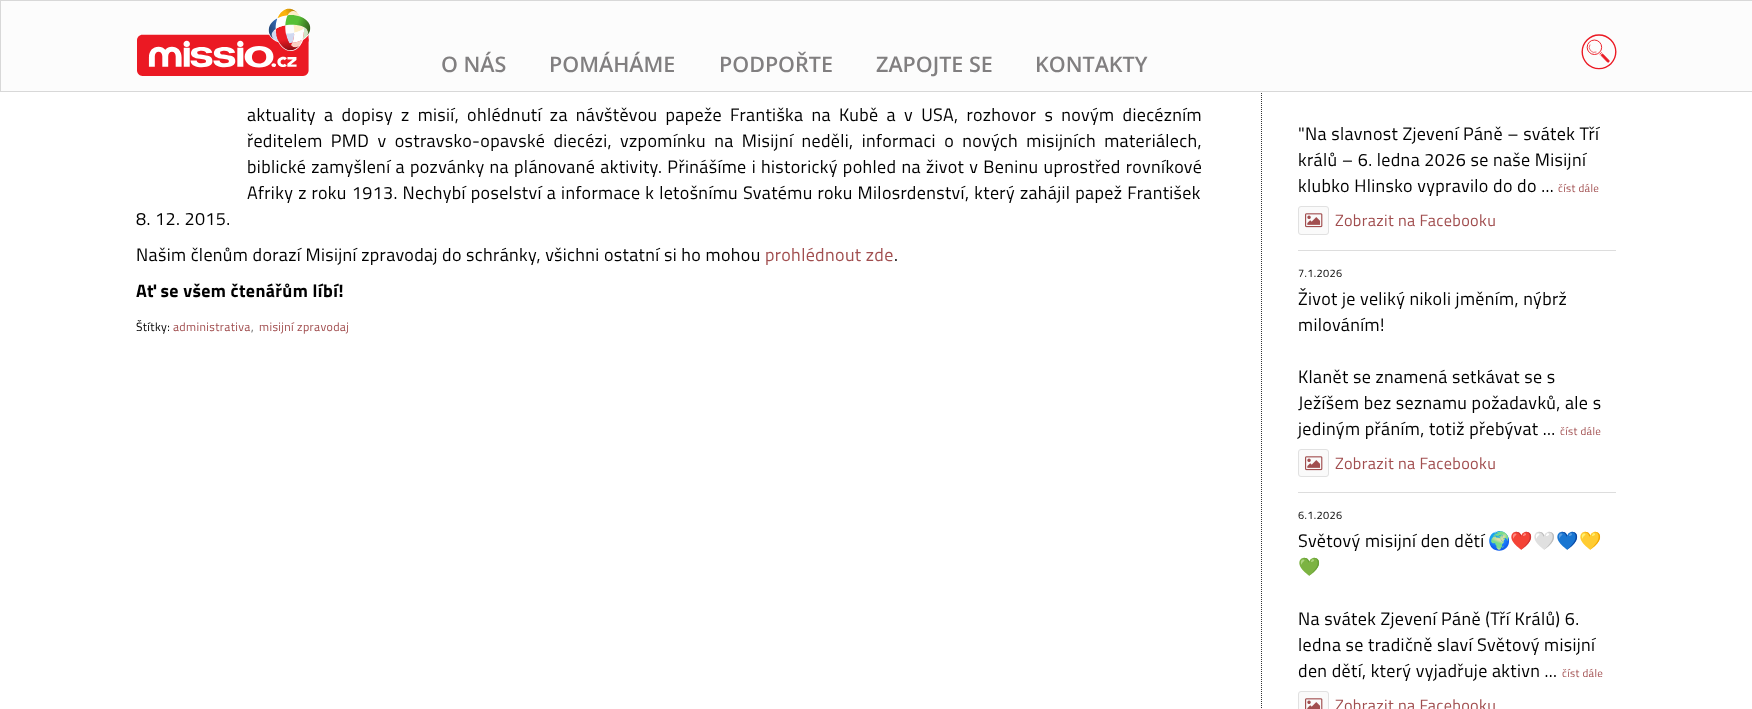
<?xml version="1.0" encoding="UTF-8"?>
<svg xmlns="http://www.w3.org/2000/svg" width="1752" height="709">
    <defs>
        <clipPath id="clip1"><rect x="1298" y="18" width="318" height="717"/></clipPath>
    </defs>
    <rect width="100%" height="100%" fill="#FFFFFF"/>
    <path d="M 1261.5 -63 V 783" fill="none" stroke="#333333" stroke-dasharray="1 1"/>
    <rect x="0.5" y="0.5" width="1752" height="91" fill="#FCFCFC" stroke="#D8D8D8"/>
    <image x="137" y="8" width="174" height="68" href="img_01.png"/>
    <text x="441" y="72" font-family="Open Sans" font-size="21.5" font-weight="600" fill="#817F80">O NÁS</text>
    <text x="549" y="72" font-family="Open Sans" font-size="21.5" font-weight="600" fill="#817F80">POMÁHÁME</text>
    <text x="719" y="72" font-family="Open Sans" font-size="21.5" font-weight="600" fill="#817F80">PODPOŘTE</text>
    <text x="876" y="72" font-family="Open Sans" font-size="21.5" font-weight="600" fill="#817F80">ZAPOJTE SE</text>
    <text x="1035" y="72" font-family="Open Sans" font-size="21.5" font-weight="600" fill="#817F80">KONTAKTY</text>
    <image x="1581" y="34" width="36" height="36" href="img_02.png"/>
    <text font-family="Titillium Web" font-size="18" letter-spacing="0.36" fill="#000000">
        <tspan x="247" y="121" word-spacing="3.75">aktuality a dopisy z misií, ohlédnutí za návštěvou papeže Františka na Kubě a v USA, rozhovor s novým diecézním</tspan>
        <tspan x="247" y="147" word-spacing="3.9">ředitelem PMD v ostravsko-opavské diecézi, vzpomínku na Misijní neděli, informaci o nových misijních materiálech,</tspan>
        <tspan x="247" y="173" word-spacing="0.75">biblické zamyšlení a pozvánky na plánované aktivity. Přinášíme i historický pohled na život v Beninu uprostřed rovníkové</tspan>
        <tspan x="247" y="199" word-spacing="0.6">Afriky z roku 1913. Nechybí poselství a informace k letošnímu Svatému roku Milosrdenství, který zahájil papež František</tspan>
    </text>
    <text x="136" y="225" font-family="Titillium Web" font-size="18" letter-spacing="0.36" fill="#000000">8. 12. 2015.</text>
    <text x="136" y="261" font-family="Titillium Web" font-size="18" letter-spacing="0.36" fill="#000000">Našim členům dorazí Misijní zpravodaj do schránky, všichni ostatní si ho mohou</text>
    <text x="765" y="261" font-family="Titillium Web" font-size="18" letter-spacing="0.36" fill="#A14E4F">prohlédnout zde</text>
    <text x="894" y="261" font-family="Titillium Web" font-size="18" letter-spacing="0.36" fill="#000000">.</text>
    <text x="136" y="297" font-family="Titillium Web" font-size="18" font-weight="700" letter-spacing="0.36" fill="#000000">Ať se všem čtenářům líbí!</text>
    <text x="136" y="331" font-family="Titillium Web" font-size="12" letter-spacing="0.36" fill="#000000">Štítky:</text>
    <text x="173" y="331" font-family="Titillium Web" font-size="12" letter-spacing="0.36" fill="#A14E4F">administrativa</text>
    <text x="251" y="331" font-family="Titillium Web" font-size="12" letter-spacing="0.36" fill="#606060">,</text>
    <text x="259" y="331" font-family="Titillium Web" font-size="12" letter-spacing="0.36" fill="#A14E4F">misijní zpravodaj</text>
    <rect x="1298" y="250" width="318" height="1" fill="#DDDDDD"/>
    <text font-family="Titillium Web" font-size="18" letter-spacing="0.36" fill="#000000">
        <tspan x="1298" y="140">"Na slavnost Zjevení Páně – svátek Tří</tspan>
        <tspan x="1298" y="166">králů – 6. ledna 2026 se naše Misijní</tspan>
        <tspan x="1298" y="192">klubko Hlinsko vypravilo do do ...</tspan>
    </text>
    <text x="1558" y="192" font-family="Titillium Web" font-size="11" letter-spacing="0.36" fill="#A14E4F">číst dále</text>
    <rect x="1298.5" y="206.5" width="30" height="28" rx="2.5" fill="#FAFAFA" stroke="#E1E1E1"/>
    <image x="1305" y="213" width="18" height="15" href="img_03.png"/>
    <text x="1335" y="226" font-family="Titillium Web" font-size="16.25" letter-spacing="0.36" fill="#A14E4F">Zobrazit na Facebooku</text>
    <rect x="1298" y="492" width="318" height="1" fill="#DDDDDD"/>
    <text x="1298" y="277" font-family="Titillium Web" font-size="11" letter-spacing="0.36" fill="#000000">7.1.2026</text>
    <text font-family="Titillium Web" font-size="18" letter-spacing="0.36" fill="#000000">
        <tspan x="1298" y="305">Život je veliký nikoli jměním, nýbrž</tspan>
        <tspan x="1298" y="331">milováním!</tspan>
    </text>
    <text font-family="Titillium Web" font-size="18" letter-spacing="0.36" fill="#000000">
        <tspan x="1298" y="383">Klanět se znamená setkávat se s</tspan>
        <tspan x="1298" y="409">Ježíšem bez seznamu požadavků, ale s</tspan>
        <tspan x="1298" y="435">jediným přáním, totiž přebývat ...</tspan>
    </text>
    <text x="1560" y="435" font-family="Titillium Web" font-size="11" letter-spacing="0.36" fill="#A14E4F">číst dále</text>
    <rect x="1298.5" y="449.5" width="30" height="27" rx="2.5" fill="#FAFAFA" stroke="#E1E1E1"/>
    <image x="1305" y="456" width="18" height="15" href="img_03.png"/>
    <text x="1335" y="469" font-family="Titillium Web" font-size="16.25" letter-spacing="0.36" fill="#A14E4F">Zobrazit na Facebooku</text>
    <text x="1298" y="519" font-family="Titillium Web" font-size="11" letter-spacing="0.36" fill="#000000">6.1.2026</text>
    <text x="1298" y="547" font-family="Titillium Web" font-size="18" letter-spacing="0.36" fill="#000000">Světový misijní den dětí</text>
    <text x="1488" y="547" font-family="Noto Color Emoji" font-size="18" letter-spacing="0.36" fill="#000000">🌍❤️🤍💙💛</text>
    <g clip-path="url(#clip1)">
        <text x="1298" y="573" font-family="Noto Color Emoji" font-size="18" letter-spacing="0.36" fill="#000000">💚</text>
    </g>
    <text font-family="Titillium Web" font-size="18" letter-spacing="0.36" fill="#000000">
        <tspan x="1298" y="625">Na svátek Zjevení Páně (Tří Králů) 6.</tspan>
        <tspan x="1298" y="651">ledna se tradičně slaví Světový misijní</tspan>
        <tspan x="1298" y="677">den dětí, který vyjadřuje aktivn ...</tspan>
    </text>
    <text x="1562" y="677" font-family="Titillium Web" font-size="11" letter-spacing="0.36" fill="#A14E4F">číst dále</text>
    <rect x="1298.5" y="691.5" width="30" height="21" rx="2.5" fill="#FAFAFA" stroke="#E1E1E1"/>
    <image x="1305" y="698" width="18" height="11" href="img_04.png"/>
    <text x="1335" y="711" font-family="Titillium Web" font-size="16.25" letter-spacing="0.36" fill="#A14E4F">Zobrazit na Facebooku</text>
</svg>
